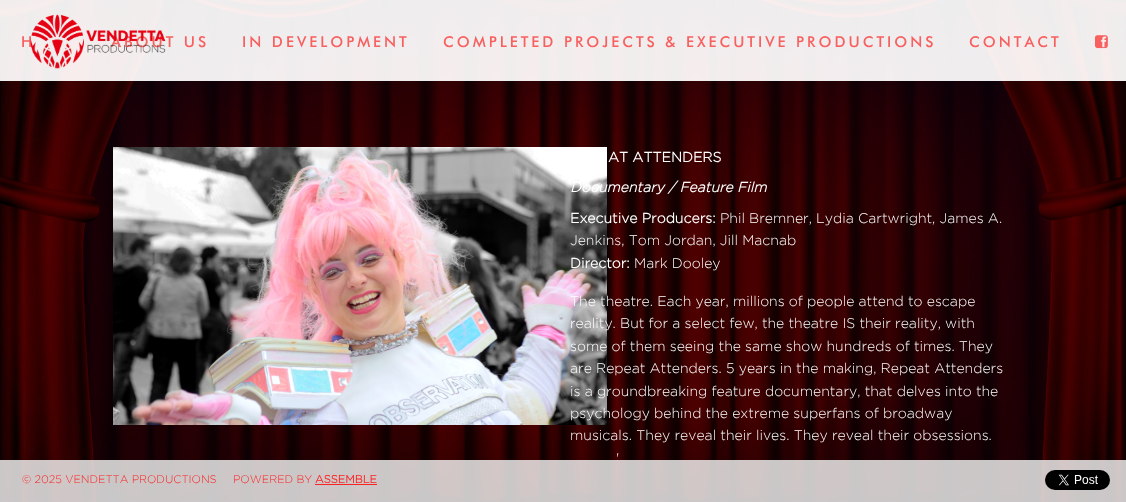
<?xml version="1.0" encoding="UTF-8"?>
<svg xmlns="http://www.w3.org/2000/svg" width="1126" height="502">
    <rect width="100%" height="100%" fill="#FFFFFF"/>
    <image x="0" y="0" width="1126" height="502" href="img_01.png"/>
    <rect x="0" y="80" width="1126" height="422" fill="#000000" fill-opacity="0.59"/>
    <rect x="0" y="0" width="1126" height="81" fill="#FFFFFF" fill-opacity="0.93"/>
    <text x="21" y="47" font-family="Futura" font-size="15" font-weight="500" letter-spacing="3" fill="#F86060">H</text>
    <text x="111" y="47" font-family="Futura" font-size="15" font-weight="500" letter-spacing="3" fill="#F86060">ABOUT US</text>
    <image x="30" y="14" width="136" height="55" href="img_02.png"/>
    <text x="242" y="47" font-family="Futura" font-size="15" font-weight="500" letter-spacing="3" fill="#F86060">IN DEVELOPMENT</text>
    <text x="443" y="47" font-family="Futura" font-size="15" font-weight="500" letter-spacing="3" fill="#F86060">COMPLETED PROJECTS &amp; EXECUTIVE PRODUCTIONS</text>
    <text x="969" y="47" font-family="Futura" font-size="15" font-weight="500" letter-spacing="3" fill="#F86060">CONTACT</text>
    <image x="1095" y="35" width="13" height="14" href="img_03.png"/>
    <image x="113" y="147" width="494" height="278" href="img_04.png"/>
    <text x="608" y="162" font-family="Gotham" font-size="14" font-weight="700" fill="#FFFFFF">AT ATTENDERS</text>
    <text x="570" y="192" font-family="Gotham" font-size="14" font-weight="700" font-style="italic" fill="#FFFFFF">Documentary / Feature Film</text>
    <text x="570" y="223" font-family="Gotham" font-size="14" font-weight="700" fill="#FFFFFF">Executive Producers:</text>
    <text x="720" y="223" font-family="Gotham" font-size="14" font-weight="300" fill="#FFFFFF">Phil Bremner, Lydia Cartwright, James A.</text>
    <text x="570" y="245" font-family="Gotham" font-size="14" font-weight="300" fill="#FFFFFF">Jenkins, Tom Jordan, Jill Macnab</text>
    <text x="570" y="268" font-family="Gotham" font-size="14" font-weight="700" fill="#FFFFFF">Director:</text>
    <text x="634" y="268" font-family="Gotham" font-size="14" font-weight="300" fill="#FFFFFF">Mark Dooley</text>
    <text font-family="Gotham" font-size="14" font-weight="300" fill="#FFFFFF">
        <tspan x="570" y="306">The theatre. Each year, millions of people attend to escape</tspan>
        <tspan x="570" y="328">reality. But for a select few, the theatre IS their reality, with</tspan>
        <tspan x="570" y="351">some of them seeing the same show hundreds of times. They</tspan>
        <tspan x="570" y="373">are Repeat Attenders. 5 years in the making, Repeat Attenders</tspan>
        <tspan x="570" y="396">is a groundbreaking feature documentary, that delves into the</tspan>
        <tspan x="570" y="418">psychology behind the extreme superfans of broadway</tspan>
        <tspan x="570" y="440">musicals. They reveal their lives. They reveal their obsessions.</tspan>
    </text>
    <text x="616" y="463" font-family="Gotham" font-size="14" font-weight="300" fill="#FFFFFF">'</text>
    <rect x="0" y="460" width="1126" height="42" fill="#FFFFFF" fill-opacity="0.78"/>
    <text x="22" y="483" font-family="Gotham" font-size="11" font-weight="300" fill="#FB2323">© 2025 VENDETTA PRODUCTIONS</text>
    <text x="233" y="483" font-family="Gotham" font-size="11" font-weight="300" fill="#FB2323">POWERED BY</text>
    <text x="315" y="483" font-family="Gotham" font-size="11" font-weight="700" fill="#FB2323">ASSEMBLE</text>
    <rect x="315" y="484" width="62" height="1" fill="#FB2323"/>
    <image x="1045" y="470" width="65" height="20" href="img_05.png"/>
</svg>
